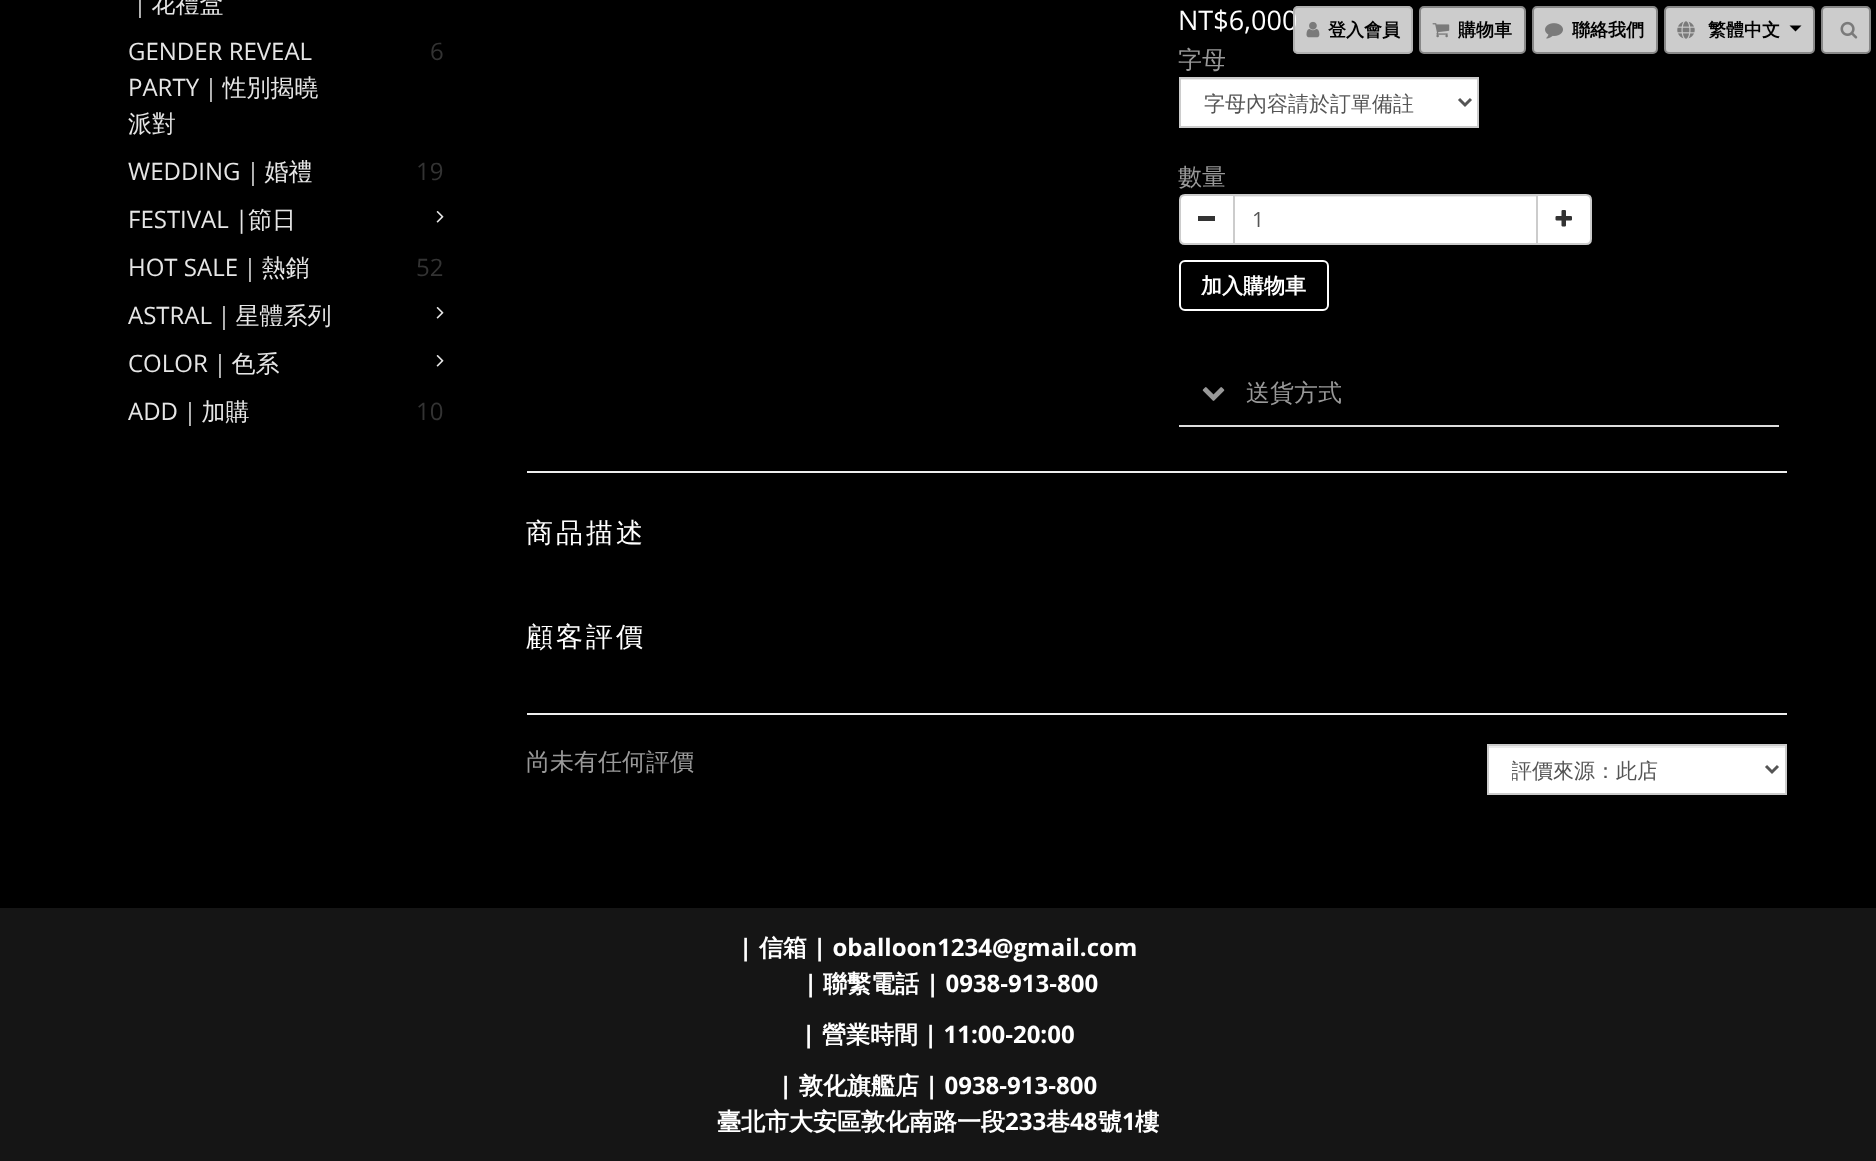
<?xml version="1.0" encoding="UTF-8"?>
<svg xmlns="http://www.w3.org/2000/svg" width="1876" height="1161">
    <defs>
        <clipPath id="clip1"><rect x="1512" y="755" width="231" height="31"/></clipPath>
    </defs>
    <rect width="100%" height="100%" fill="#000000"/>
    <text x="128" y="12" font-family="WenQuanYi Zen Hei" font-size="24" font-weight="500" fill="#E6E6E6">｜花禮盒</text>
    <text font-family="Open Sans" font-size="24" fill="#E6E6E6">
        <tspan x="128" y="60">GENDER REVEAL</tspan>
        <tspan x="128" y="96">PARTY</tspan>
    </text>
    <text x="199" y="96" font-family="WenQuanYi Zen Hei" font-size="24" font-weight="500" fill="#E6E6E6">｜性別揭曉</text>
    <text x="128" y="132" font-family="WenQuanYi Zen Hei" font-size="24" font-weight="500" fill="#E6E6E6">派對</text>
    <text x="430" y="60" font-family="Open Sans" font-size="24" fill="#333333">6</text>
    <text x="128" y="180" font-family="Open Sans" font-size="24" fill="#E6E6E6">WEDDING</text>
    <text x="241" y="180" font-family="WenQuanYi Zen Hei" font-size="24" font-weight="500" fill="#E6E6E6">｜婚禮</text>
    <text x="416" y="180" font-family="Open Sans" font-size="24" fill="#333333">19</text>
    <text x="128" y="228" font-family="Open Sans" font-size="24" fill="#E6E6E6">FESTIVAL |</text>
    <text x="248" y="228" font-family="WenQuanYi Zen Hei" font-size="24" font-weight="500" fill="#E6E6E6">節日</text>
    <image x="436" y="211" width="8" height="12" href="img_01.png"/>
    <text x="128" y="276" font-family="Open Sans" font-size="24" fill="#E6E6E6">HOT SALE</text>
    <text x="238" y="276" font-family="WenQuanYi Zen Hei" font-size="24" font-weight="500" fill="#E6E6E6">｜熱銷</text>
    <text x="416" y="276" font-family="Open Sans" font-size="24" fill="#333333">52</text>
    <text x="128" y="324" font-family="Open Sans" font-size="24" fill="#E6E6E6">ASTRAL</text>
    <text x="212" y="324" font-family="WenQuanYi Zen Hei" font-size="24" font-weight="500" fill="#E6E6E6">｜星體系列</text>
    <image x="436" y="307" width="8" height="12" href="img_01.png"/>
    <text x="128" y="372" font-family="Open Sans" font-size="24" fill="#E6E6E6">COLOR</text>
    <text x="208" y="372" font-family="WenQuanYi Zen Hei" font-size="24" font-weight="500" fill="#E6E6E6">｜色系</text>
    <image x="436" y="355" width="8" height="12" href="img_01.png"/>
    <text x="128" y="420" font-family="Open Sans" font-size="24" fill="#E6E6E6">ADD</text>
    <text x="178" y="420" font-family="WenQuanYi Zen Hei" font-size="24" font-weight="500" fill="#E6E6E6">｜加購</text>
    <text x="416" y="420" font-family="Open Sans" font-size="24" fill="#333333">10</text>
    <text x="1178" y="30" font-family="Open Sans" font-size="27" fill="#FFFFFF">NT$6,000</text>
    <text x="1178" y="68" font-family="WenQuanYi Zen Hei" font-size="24" font-weight="500" fill="#999999">字母</text>
    <rect x="1181" y="80" width="296" height="46" fill="#FFFFFF"/>
    <rect x="1181" y="79" width="297" height="1" fill="#ECECEC"/>
    <rect x="1180" y="78" width="298" height="49" fill="none" stroke="#CCCCCC" stroke-width="2"/>
    <path d="M 1459 99 L 1465 105 L 1471 99" fill="none" stroke="#555555" stroke-width="3"/>
    <text x="1204" y="111" font-family="WenQuanYi Zen Hei" font-size="21" font-weight="500" fill="#555555">字母內容請於訂單備註</text>
    <text x="1178" y="185" font-family="WenQuanYi Zen Hei" font-size="24" font-weight="500" fill="#999999">數量</text>
    <path d="M 1185 195 H 1234 V 244 H 1185 C 1182 244 1180 242 1180 239 V 200 C 1180 197 1182 195 1185 195 Z" fill="#FFFFFF" stroke="#CCCCCC" stroke-width="2"/>
    <rect x="1198" y="216" width="17" height="5" fill="#333333"/>
    <rect x="1235" y="197" width="301" height="46" fill="#FFFFFF"/>
    <rect x="1235" y="196" width="301" height="1" fill="#ECECEC"/>
    <rect x="1234" y="195" width="303" height="49" fill="none" stroke="#CCCCCC" stroke-width="2"/>
    <text x="1252" y="227" font-family="Open Sans" font-size="21" fill="#555555">1</text>
    <path d="M 1537 195 H 1586 C 1589 195 1591 197 1591 200 V 239 C 1591 242 1589 244 1586 244 H 1537 Z" fill="#FFFFFF" stroke="#CCCCCC" stroke-width="2"/>
    <image x="1555" y="210" width="17" height="17" href="img_02.png"/>
    <rect x="1180" y="261" width="148" height="49" rx="5" fill="none" stroke="#FFFFFF" stroke-width="2"/>
    <text x="1201" y="293" font-family="WenQuanYi Zen Hei" font-size="21" font-weight="700" fill="#FFFFFF">加入購物車</text>
    <rect x="1179" y="425" width="600" height="2" fill="#DDDDDD"/>
    <image x="1202" y="387" width="23" height="14" href="img_03.png"/>
    <text x="1246" y="401" font-family="WenQuanYi Zen Hei" font-size="24" font-weight="500" fill="#999999">送貨方式</text>
    <rect x="527" y="471" width="1260" height="2" fill="#EEEEEE"/>
    <text x="526" y="542" font-family="WenQuanYi Zen Hei" font-size="27" font-weight="500" letter-spacing="3" fill="#FFFFFF">商品描述</text>
    <text x="526" y="646" font-family="WenQuanYi Zen Hei" font-size="27" font-weight="500" letter-spacing="3" fill="#FFFFFF">顧客評價</text>
    <rect x="527" y="713" width="1260" height="2" fill="#EEEEEE"/>
    <text x="526" y="770" font-family="WenQuanYi Zen Hei" font-size="24" font-weight="500" fill="#999999">尚未有任何評價</text>
    <rect x="1489" y="748" width="296" height="45" fill="#FFFFFF"/>
    <rect x="1488" y="746" width="297" height="2" fill="#ECECEC"/>
    <rect x="1488" y="745" width="298" height="49" fill="none" stroke="#CCCCCC" stroke-width="2"/>
    <path d="M 1766 766 L 1772 772 L 1778 766" fill="none" stroke="#555555" stroke-width="3"/>
    <g clip-path="url(#clip1)">
        <text x="1511" y="778" font-family="WenQuanYi Zen Hei" font-size="21" font-weight="500" fill="#555555">評價來源：此店</text>
    </g>
    <rect x="0" y="908" width="1876" height="253" fill="#151515"/>
    <text x="739" y="956" font-family="Open Sans" font-size="24" font-weight="700" fill="#FFFFFF">|</text>
    <text x="759" y="956" font-family="WenQuanYi Zen Hei" font-size="24" font-weight="700" fill="#FFFFFF">信箱</text>
    <text x="813" y="956" font-family="Open Sans" font-size="24" font-weight="700" fill="#FFFFFF">| oballoon1234@gmail.com</text>
    <text x="804" y="992" font-family="Open Sans" font-size="24" font-weight="700" fill="#FFFFFF">|</text>
    <text x="823" y="992" font-family="WenQuanYi Zen Hei" font-size="24" font-weight="700" fill="#FFFFFF">聯繫電話</text>
    <text x="926" y="992" font-family="Open Sans" font-size="24" font-weight="700" fill="#FFFFFF">| 0938-913-800</text>
    <text x="802" y="1043" font-family="Open Sans" font-size="24" font-weight="700" fill="#FFFFFF">|</text>
    <text x="822" y="1043" font-family="WenQuanYi Zen Hei" font-size="24" font-weight="700" fill="#FFFFFF">營業時間</text>
    <text x="924" y="1043" font-family="Open Sans" font-size="24" font-weight="700" fill="#FFFFFF">| 11:00-20:00</text>
    <text x="779" y="1094" font-family="Open Sans" font-size="24" font-weight="700" fill="#FFFFFF">|</text>
    <text x="799" y="1094" font-family="WenQuanYi Zen Hei" font-size="24" font-weight="700" fill="#FFFFFF">敦化旗艦店</text>
    <text x="925" y="1094" font-family="Open Sans" font-size="24" font-weight="700" fill="#FFFFFF">| 0938-913-800</text>
    <text x="717" y="1130" font-family="WenQuanYi Zen Hei" font-size="24" font-weight="700" fill="#FFFFFF">臺北市大安區敦化南路一段</text>
    <text x="1005" y="1130" font-family="Open Sans" font-size="24" font-weight="700" fill="#FFFFFF">233</text>
    <text x="1046" y="1130" font-family="WenQuanYi Zen Hei" font-size="24" font-weight="700" fill="#FFFFFF">巷</text>
    <text x="1070" y="1130" font-family="Open Sans" font-size="24" font-weight="700" fill="#FFFFFF">48</text>
    <text x="1098" y="1130" font-family="WenQuanYi Zen Hei" font-size="24" font-weight="700" fill="#FFFFFF">號</text>
    <text x="1122" y="1130" font-family="Open Sans" font-size="24" font-weight="700" fill="#FFFFFF">1</text>
    <text x="1135" y="1130" font-family="WenQuanYi Zen Hei" font-size="24" font-weight="700" fill="#FFFFFF">樓</text>
    <rect x="1293" y="6" width="120" height="48" rx="5" fill="#FFFFFF" fill-opacity="0.8"/>
    <rect x="1294" y="7" width="118" height="46" rx="4" fill="none" stroke="#AAAAAA" stroke-opacity="0.8" stroke-width="2"/>
    <image x="1306" y="21" width="14" height="17" href="img_04.png"/>
    <text x="1328" y="36" font-family="WenQuanYi Zen Hei" font-size="18" font-weight="700" fill="#000000">登入會員</text>
    <rect x="1420" y="7" width="105" height="46" rx="4" fill="#CCCCCC" stroke="#888888" stroke-width="2"/>
    <image x="1432" y="23" width="18" height="15" href="img_05.png"/>
    <text x="1458" y="36" font-family="WenQuanYi Zen Hei" font-size="18" font-weight="700" fill="#000000">購物車</text>
    <rect x="1533" y="7" width="124" height="46" rx="4" fill="#CCCCCC" stroke="#888888" stroke-width="2"/>
    <image x="1545" y="23" width="18" height="16" href="img_06.png"/>
    <text x="1572" y="36" font-family="WenQuanYi Zen Hei" font-size="18" font-weight="700" fill="#000000">聯絡我們</text>
    <rect x="1665" y="7" width="149" height="46" rx="4" fill="#CCCCCC" stroke="#888888" stroke-width="2"/>
    <image x="1677" y="21" width="18" height="18" href="img_07.png"/>
    <text x="1708" y="36" font-family="WenQuanYi Zen Hei" font-size="18" font-weight="700" fill="#000000">繁體中文</text>
    <path d="M 1789.5 25.5 H 1801.5 L 1795.5 31.5 Z" fill="#000000"/>
    <rect x="1822" y="7" width="48" height="46" rx="4" fill="#CCCCCC" stroke="#888888" stroke-width="2"/>
    <image x="1840" y="21" width="18" height="18" href="img_08.png"/>
</svg>
